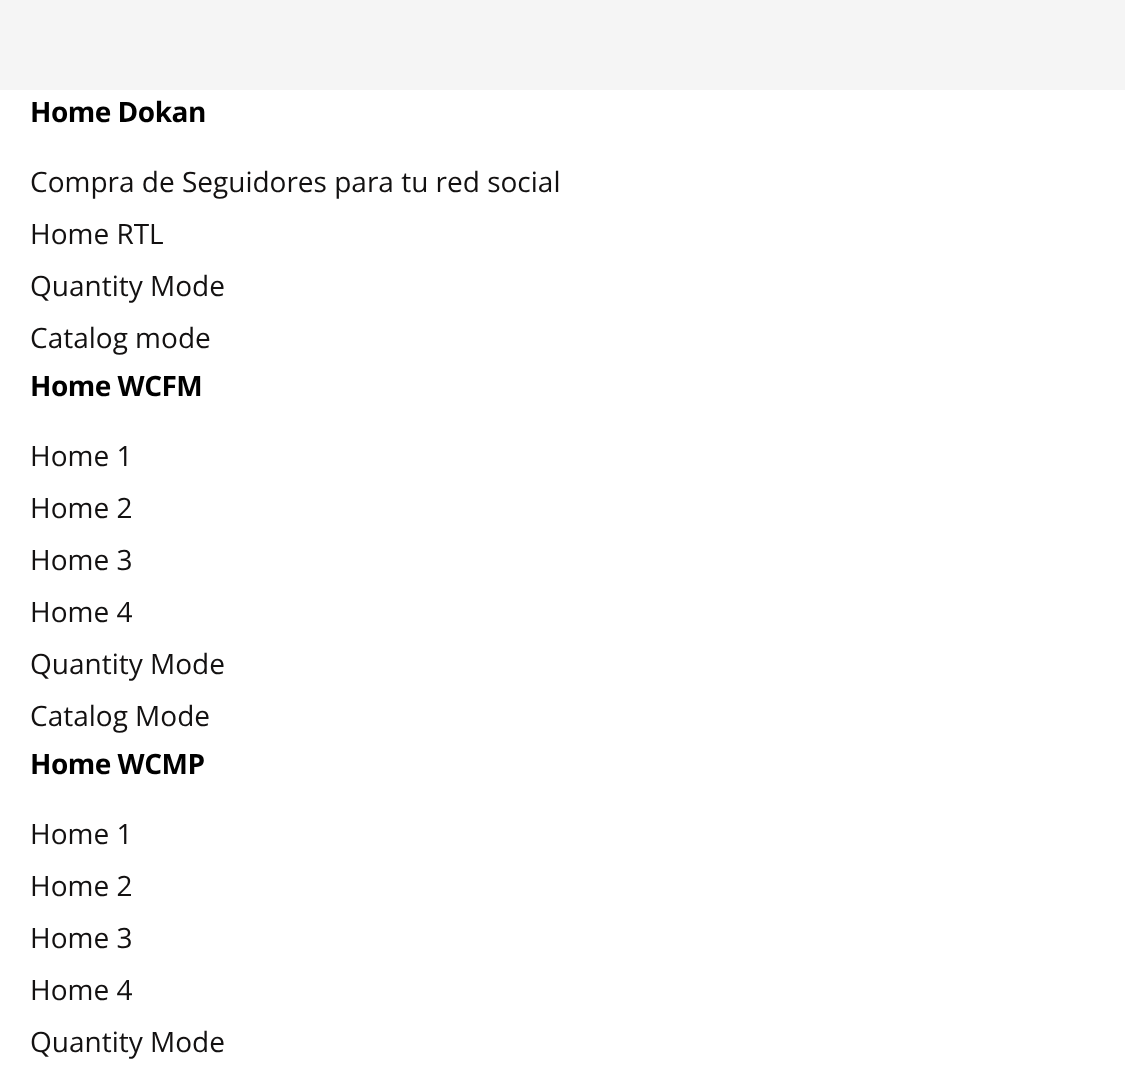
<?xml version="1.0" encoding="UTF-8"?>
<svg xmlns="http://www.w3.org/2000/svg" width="1125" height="1065">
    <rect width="100%" height="100%" fill="#F5F5F5"/>
    <rect x="0" y="90" width="1125" height="975" fill="#FFFFFF"/>
    <text x="30" y="122" font-family="Open Sans" font-size="28" font-weight="700" letter-spacing="-0.5" fill="#000000">Home Dokan</text>
    <text font-family="Open Sans" font-size="28" fill="#131111">
        <tspan x="30" y="192">Compra de Seguidores para tu red social</tspan>
        <tspan x="30" y="244">Home RTL</tspan>
        <tspan x="30" y="296">Quantity Mode</tspan>
        <tspan x="30" y="348">Catalog mode</tspan>
    </text>
    <text x="30" y="396" font-family="Open Sans" font-size="28" font-weight="700" letter-spacing="-0.5" fill="#000000">Home WCFM</text>
    <text font-family="Open Sans" font-size="28" fill="#131111">
        <tspan x="30" y="466">Home 1</tspan>
        <tspan x="30" y="518">Home 2</tspan>
        <tspan x="30" y="570">Home 3</tspan>
        <tspan x="30" y="622">Home 4</tspan>
        <tspan x="30" y="674">Quantity Mode</tspan>
        <tspan x="30" y="726">Catalog Mode</tspan>
    </text>
    <text x="30" y="774" font-family="Open Sans" font-size="28" font-weight="700" letter-spacing="-0.5" fill="#000000">Home WCMP</text>
    <text font-family="Open Sans" font-size="28" fill="#131111">
        <tspan x="30" y="844">Home 1</tspan>
        <tspan x="30" y="896">Home 2</tspan>
        <tspan x="30" y="948">Home 3</tspan>
        <tspan x="30" y="1000">Home 4</tspan>
        <tspan x="30" y="1052">Quantity Mode</tspan>
    </text>
</svg>
